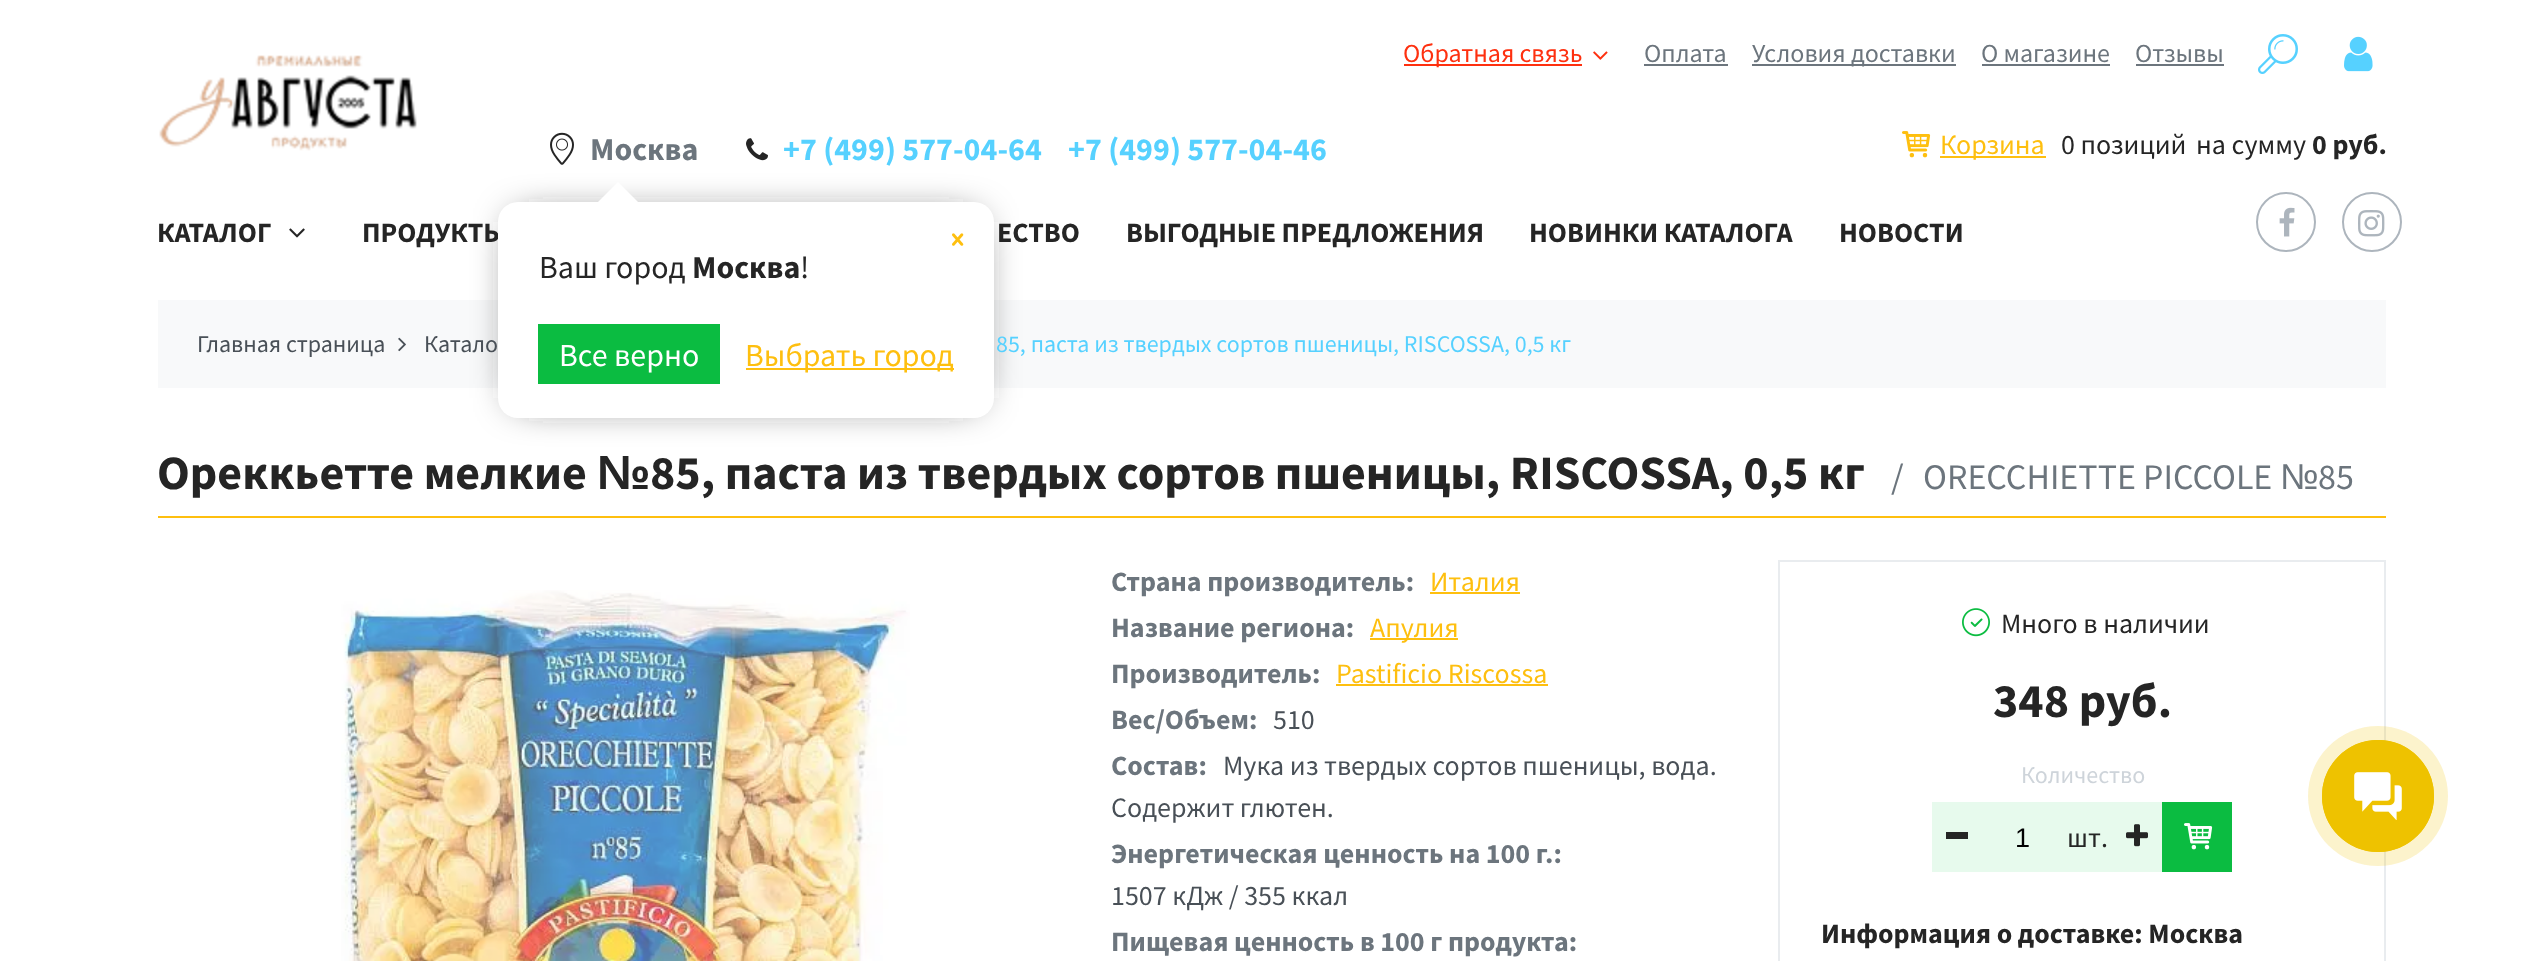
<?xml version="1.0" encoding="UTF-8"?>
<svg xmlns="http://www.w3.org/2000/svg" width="2544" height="961">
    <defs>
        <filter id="blur1" x="-50%" y="-200%" width="200%" height="500%"><feGaussianBlur stdDeviation="20"/></filter>
    </defs>
    <rect width="100%" height="100%" fill="#FFFFFF"/>
    <image x="159" y="55" width="258" height="96" href="img_01.png"/>
    <rect x="1404" y="64" width="178" height="2" fill="#FE300F"/>
    <text x="1403" y="62" font-family="Source Sans Pro" font-size="26" fill="#FE300F">Обратная связь</text>
    <image x="1593" y="51" width="15" height="9" href="img_02.png"/>
    <text x="1644" y="62" font-family="Source Sans Pro" font-size="26" fill="#6C757D">Оплата</text>
    <rect x="1644" y="64" width="84" height="2" fill="#6C757D"/>
    <rect x="1752" y="64" width="204" height="2" fill="#6C757D"/>
    <text x="1752" y="62" font-family="Source Sans Pro" font-size="26" fill="#6C757D">Условия доставки</text>
    <text x="1981" y="62" font-family="Source Sans Pro" font-size="26" fill="#6C757D">О магазине</text>
    <rect x="1982" y="64" width="128" height="2" fill="#6C757D"/>
    <text x="2135" y="62" font-family="Source Sans Pro" font-size="26" fill="#6C757D">Отзывы</text>
    <rect x="2136" y="64" width="88" height="2" fill="#6C757D"/>
    <image x="2258" y="34" width="40" height="40" href="img_03.png"/>
    <image x="2344" y="36" width="29" height="36" href="img_04.png"/>
    <image x="550" y="132" width="24" height="33" href="img_05.png"/>
    <text x="590" y="160" font-family="Source Sans Pro" font-size="32" font-weight="700" fill="#6C757D">Москва</text>
    <rect x="158" y="300" width="2228" height="88" fill="#F8F9FA"/>
    <rect x="518" y="222" width="456" height="176" fill="#252525" filter="url(#blur1)"/>
    <text x="362" y="242" font-family="Source Sans Pro" font-size="28" font-weight="700" fill="#252525">ПРОДУКТЫ</text>
    <rect x="498" y="202" width="496" height="216" rx="20" fill="#FFFFFF"/>
    <path d="M 638 202 H 598 L 618 182 Z" fill="#FFFFFF"/>
    <image x="952" y="233" width="12" height="13" href="img_06.png"/>
    <text x="539" y="278" font-family="Source Sans Pro" font-size="32" fill="#252525">Ваш город</text>
    <text x="692" y="278" font-family="Source Sans Pro" font-size="32" font-weight="700" fill="#252525">Москва</text>
    <text x="800" y="278" font-family="Source Sans Pro" font-size="32" fill="#252525">!</text>
    <rect x="538" y="324" width="182" height="60" fill="#0BBC41"/>
    <text x="559" y="366" font-family="Source Sans Pro" font-size="32" fill="#FFFFFF">Все верно</text>
    <rect x="746" y="368" width="208" height="2" fill="#FEBF0F"/>
    <text x="745" y="366" font-family="Source Sans Pro" font-size="32" fill="#FEBF0F">Выбрать город</text>
    <image x="746" y="138" width="22" height="23" href="img_07.png"/>
    <text x="783" y="160" font-family="Source Sans Pro" font-size="32" font-weight="700" fill="#56D1FF">+7 (499) 577-04-64</text>
    <text x="1068" y="160" font-family="Source Sans Pro" font-size="32" font-weight="700" fill="#56D1FF">+7 (499) 577-04-46</text>
    <image x="1902" y="131" width="29" height="27" href="img_08.png"/>
    <rect x="1940" y="156" width="106" height="2" fill="#FEBF0F"/>
    <text x="1940" y="154" font-family="Source Sans Pro" font-size="28" fill="#FEBF0F">Корзина</text>
    <text x="2061" y="154" font-family="Source Sans Pro" font-size="28" fill="#252525">0 позиций</text>
    <text x="2196" y="154" font-family="Source Sans Pro" font-size="28" fill="#252525">на сумму</text>
    <text x="2312" y="154" font-family="Source Sans Pro" font-size="28" font-weight="700" fill="#252525">0 руб.</text>
    <text x="157" y="242" font-family="Source Sans Pro" font-size="28" font-weight="700" fill="#252525">КАТАЛОГ</text>
    <image x="289" y="228" width="16" height="10" href="img_09.png"/>
    <text x="997" y="242" font-family="Source Sans Pro" font-size="28" font-weight="700" fill="#252525">ЕСТВО</text>
    <text x="1126" y="242" font-family="Source Sans Pro" font-size="28" font-weight="700" fill="#252525">ВЫГОДНЫЕ ПРЕДЛОЖЕНИЯ</text>
    <text x="1529" y="242" font-family="Source Sans Pro" font-size="28" font-weight="700" fill="#252525">НОВИНКИ КАТАЛОГА</text>
    <text x="1839" y="242" font-family="Source Sans Pro" font-size="28" font-weight="700" fill="#252525">НОВОСТИ</text>
    <circle cx="2286" cy="222" r="29" fill="none" stroke="#ADB5BD" stroke-width="2"/>
    <image x="2279" y="207" width="16" height="30" href="img_10.png"/>
    <circle cx="2372" cy="222" r="29" fill="none" stroke="#ADB5BD" stroke-width="2"/>
    <image x="2358" y="210" width="27" height="27" href="img_11.png"/>
    <text x="197" y="352" font-family="Source Sans Pro" font-size="24" fill="#495057">Главная страница</text>
    <image x="398" y="337" width="8" height="15" href="img_12.png"/>
    <text x="424" y="352" font-family="Source Sans Pro" font-size="24" fill="#495057">Катало</text>
    <text x="996" y="352" font-family="Source Sans Pro" font-size="24" fill="#56D1FF">85, паста из твердых сортов пшеницы, RISCOSSA, 0,5 кг</text>
    <rect x="158" y="516" width="2228" height="2" fill="#FEBF0F"/>
    <text x="157" y="489" font-family="Source Sans Pro" font-size="48" font-weight="700" fill="#252525">Ореккьетте мелкие</text>
    <text x="597" y="489" font-family="Liberation Sans" font-size="48" font-weight="700" fill="#252525">№</text>
    <text x="650" y="489" font-family="Source Sans Pro" font-size="48" font-weight="700" fill="#252525">85, паста из твердых сортов пшеницы, RISCOSSA, 0,5 кг</text>
    <text x="1891" y="489" font-family="Source Sans Pro" font-size="36" fill="#6C757D">/</text>
    <text x="1923" y="489" font-family="Source Sans Pro" font-size="36" fill="#6C757D">ORECCHIETTE PICCOLE</text>
    <text x="2280" y="489" font-family="Liberation Sans" font-size="36" fill="#6C757D">№</text>
    <text x="2318" y="489" font-family="Source Sans Pro" font-size="36" fill="#6C757D">85</text>
    <image x="341" y="590" width="569" height="371" href="img_13.png"/>
    <text x="1111" y="591" font-family="Source Sans Pro" font-size="28" font-weight="700" fill="#6C757D">Страна производитель:</text>
    <text x="1430" y="591" font-family="Source Sans Pro" font-size="28" fill="#FEBF0F">Италия</text>
    <rect x="1430" y="592" width="90" height="2" fill="#FEBF0F"/>
    <text x="1111" y="637" font-family="Source Sans Pro" font-size="28" font-weight="700" fill="#6C757D">Название региона:</text>
    <rect x="1370" y="638" width="88" height="2" fill="#FEBF0F"/>
    <text x="1370" y="637" font-family="Source Sans Pro" font-size="28" fill="#FEBF0F">Апулия</text>
    <text x="1111" y="683" font-family="Source Sans Pro" font-size="28" font-weight="700" fill="#6C757D">Производитель:</text>
    <text x="1336" y="683" font-family="Source Sans Pro" font-size="28" fill="#FEBF0F">Pastificio Riscossa</text>
    <rect x="1336" y="684" width="212" height="2" fill="#FEBF0F"/>
    <text x="1111" y="729" font-family="Source Sans Pro" font-size="28" font-weight="700" fill="#6C757D">Вес/Объем:</text>
    <text x="1273" y="729" font-family="Source Sans Pro" font-size="28" fill="#495057">510</text>
    <text x="1111" y="775" font-family="Source Sans Pro" font-size="28" font-weight="700" fill="#6C757D">Состав:</text>
    <text x="1223" y="775" font-family="Source Sans Pro" font-size="28" fill="#495057">Мука из твердых сортов пшеницы, вода.</text>
    <text x="1111" y="817" font-family="Source Sans Pro" font-size="28" fill="#495057">Содержит глютен.</text>
    <text x="1111" y="863" font-family="Source Sans Pro" font-size="28" font-weight="700" fill="#6C757D">Энергетическая ценность на 100 г.:</text>
    <text x="1111" y="905" font-family="Source Sans Pro" font-size="28" fill="#495057">1507 кДж / 355 ккал</text>
    <text x="1111" y="951" font-family="Source Sans Pro" font-size="28" font-weight="700" fill="#6C757D">Пищевая ценность в 100 г продукта:</text>
    <rect x="1779" y="561" width="606" height="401" fill="none" stroke="#E9ECEF" stroke-width="2"/>
    <image x="1962" y="608" width="28" height="29" href="img_14.png"/>
    <text x="2001" y="633" font-family="Source Sans Pro" font-size="28" fill="#252525">Много в наличии</text>
    <text x="1993" y="717" font-family="Source Sans Pro" font-size="48" font-weight="700" fill="#252525">348 руб.</text>
    <text x="2021" y="783" font-family="Source Sans Pro" font-size="24" fill="#CED4DA">Количество</text>
    <rect x="1932" y="802" width="230" height="70" fill="#E7FAED"/>
    <rect x="1946" y="832" width="22" height="7" fill="#252525"/>
    <text x="2015" y="847" font-family="Liberation Sans" font-size="27" fill="#000000">1</text>
    <text x="2067" y="847" font-family="Source Sans Pro" font-size="28" fill="#252525">шт.</text>
    <image x="2126" y="824" width="22" height="23" href="img_15.png"/>
    <rect x="2162" y="802" width="70" height="70" fill="#0BBC41"/>
    <image x="2184" y="823" width="29" height="27" href="img_16.png"/>
    <text x="1821" y="943" font-family="Source Sans Pro" font-size="28" font-weight="700" fill="#252525">Информация о доставке: Москва</text>
    <circle cx="2378" cy="796" r="70" fill="#EEC200" fill-opacity="0.2"/>
    <circle cx="2378" cy="796" r="55" fill="none" stroke="#EEC200" stroke-width="2"/>
    <circle cx="2378" cy="796" r="56" fill="#EEC200"/>
    <image x="2354" y="772" width="48" height="48" href="img_17.png"/>
</svg>
